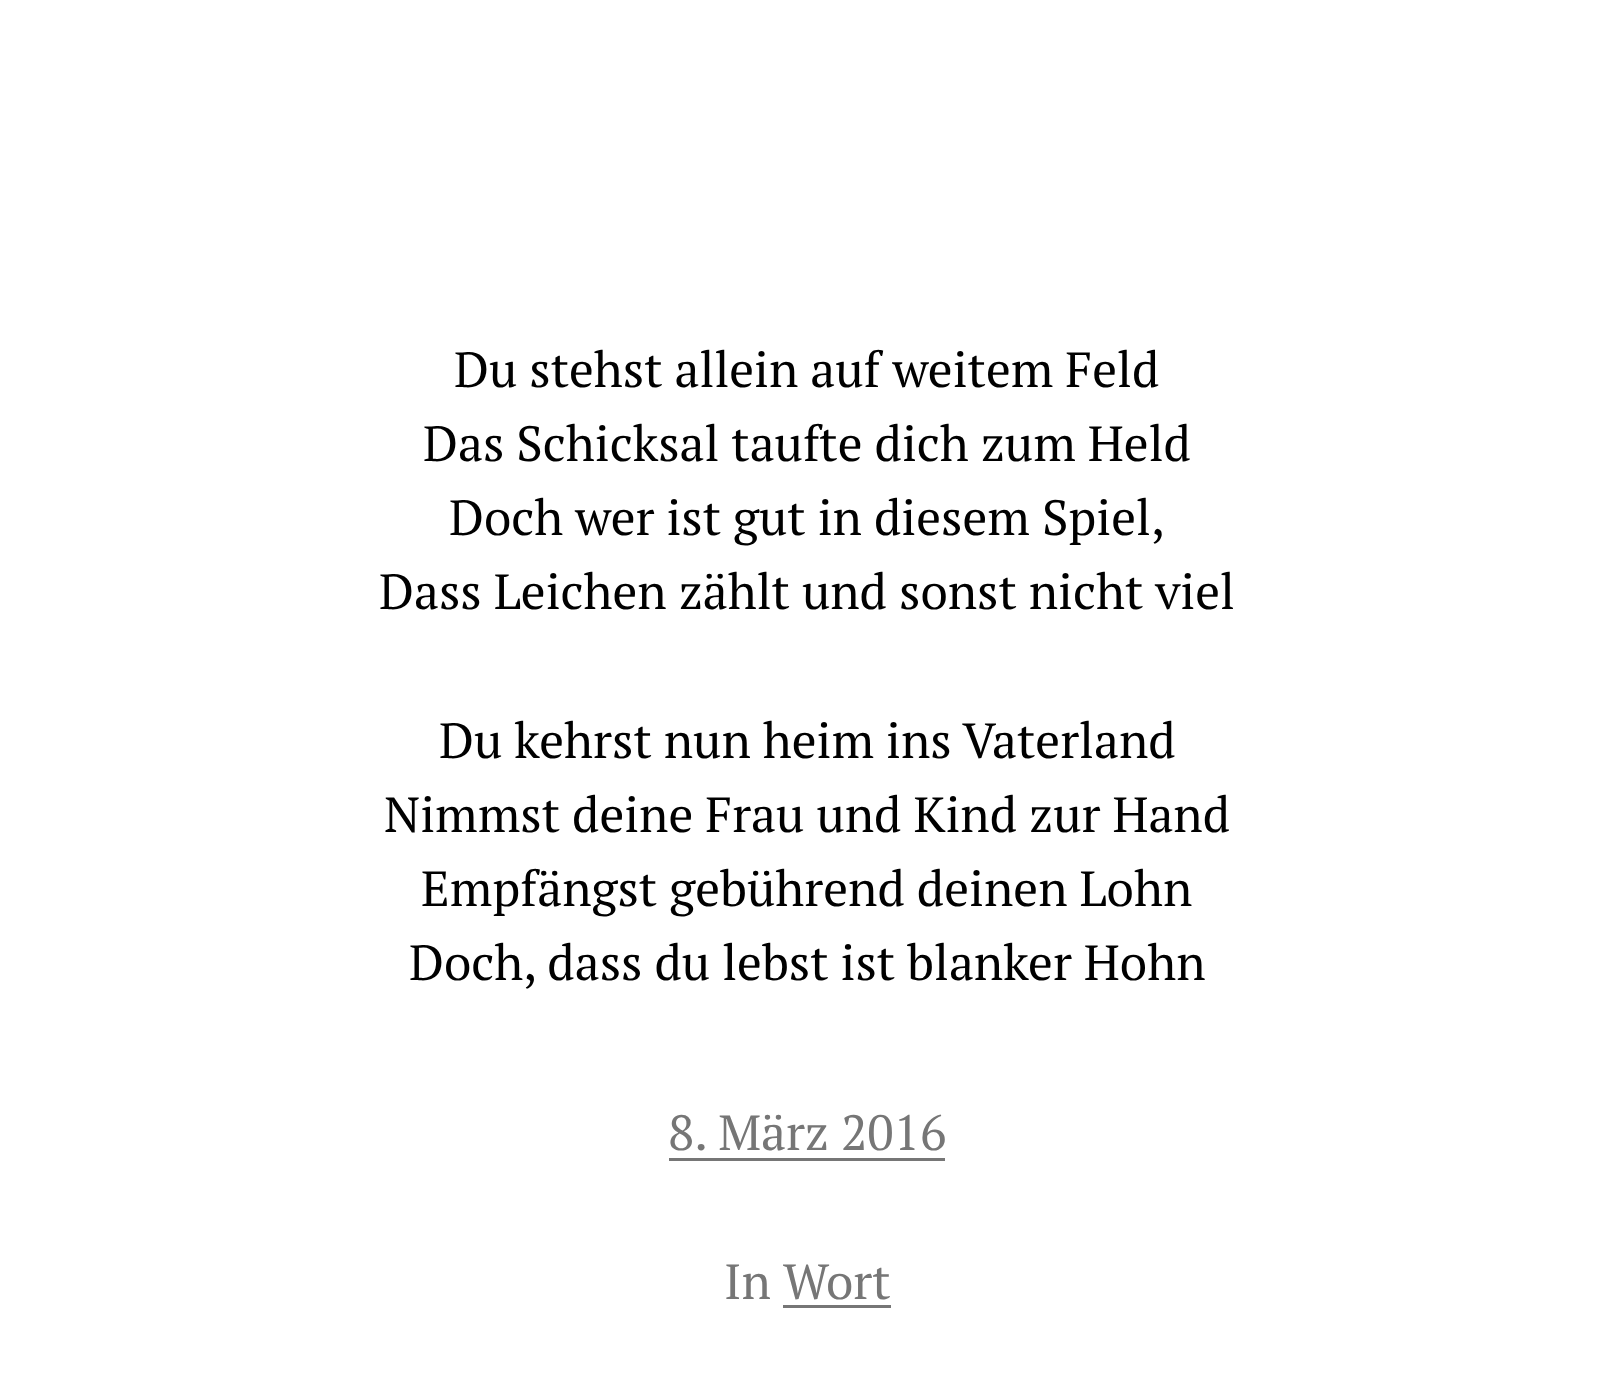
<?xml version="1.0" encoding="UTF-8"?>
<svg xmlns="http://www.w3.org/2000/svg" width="1613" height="1382">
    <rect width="100%" height="100%" fill="#FFFFFF"/>
    <text x="454" y="387" font-family="PT Serif" font-size="49.4" fill="#000000">Du stehst allein auf weitem Feld</text>
    <text x="423" y="461" font-family="PT Serif" font-size="49.4" fill="#000000">Das Schicksal taufte dich zum Held</text>
    <text x="449" y="535" font-family="PT Serif" font-size="49.4" fill="#000000">Doch wer ist gut in diesem Spiel,</text>
    <text x="379" y="609" font-family="PT Serif" font-size="49.4" fill="#000000">Dass Leichen zählt und sonst nicht viel</text>
    <text x="439" y="758" font-family="PT Serif" font-size="49.4" fill="#000000">Du kehrst nun heim ins Vaterland</text>
    <text x="384" y="832" font-family="PT Serif" font-size="49.4" fill="#000000">Nimmst deine Frau und Kind zur Hand</text>
    <text x="421" y="906" font-family="PT Serif" font-size="49.4" fill="#000000">Empfängst gebührend deinen Lohn</text>
    <text x="409" y="980" font-family="PT Serif" font-size="49.4" fill="#000000">Doch, dass du lebst ist blanker Hohn</text>
    <text x="668" y="1150" font-family="PT Serif" font-size="49.4" fill="#767676">8. März 2016</text>
    <rect x="669" y="1158" width="276" height="3" fill="#767676"/>
    <text x="724" y="1299" font-family="PT Serif" font-size="49.4" fill="#767676">In</text>
    <text x="783" y="1299" font-family="PT Serif" font-size="49.4" fill="#767676">Wort</text>
    <rect x="783" y="1305" width="108" height="3" fill="#767676"/>
</svg>
